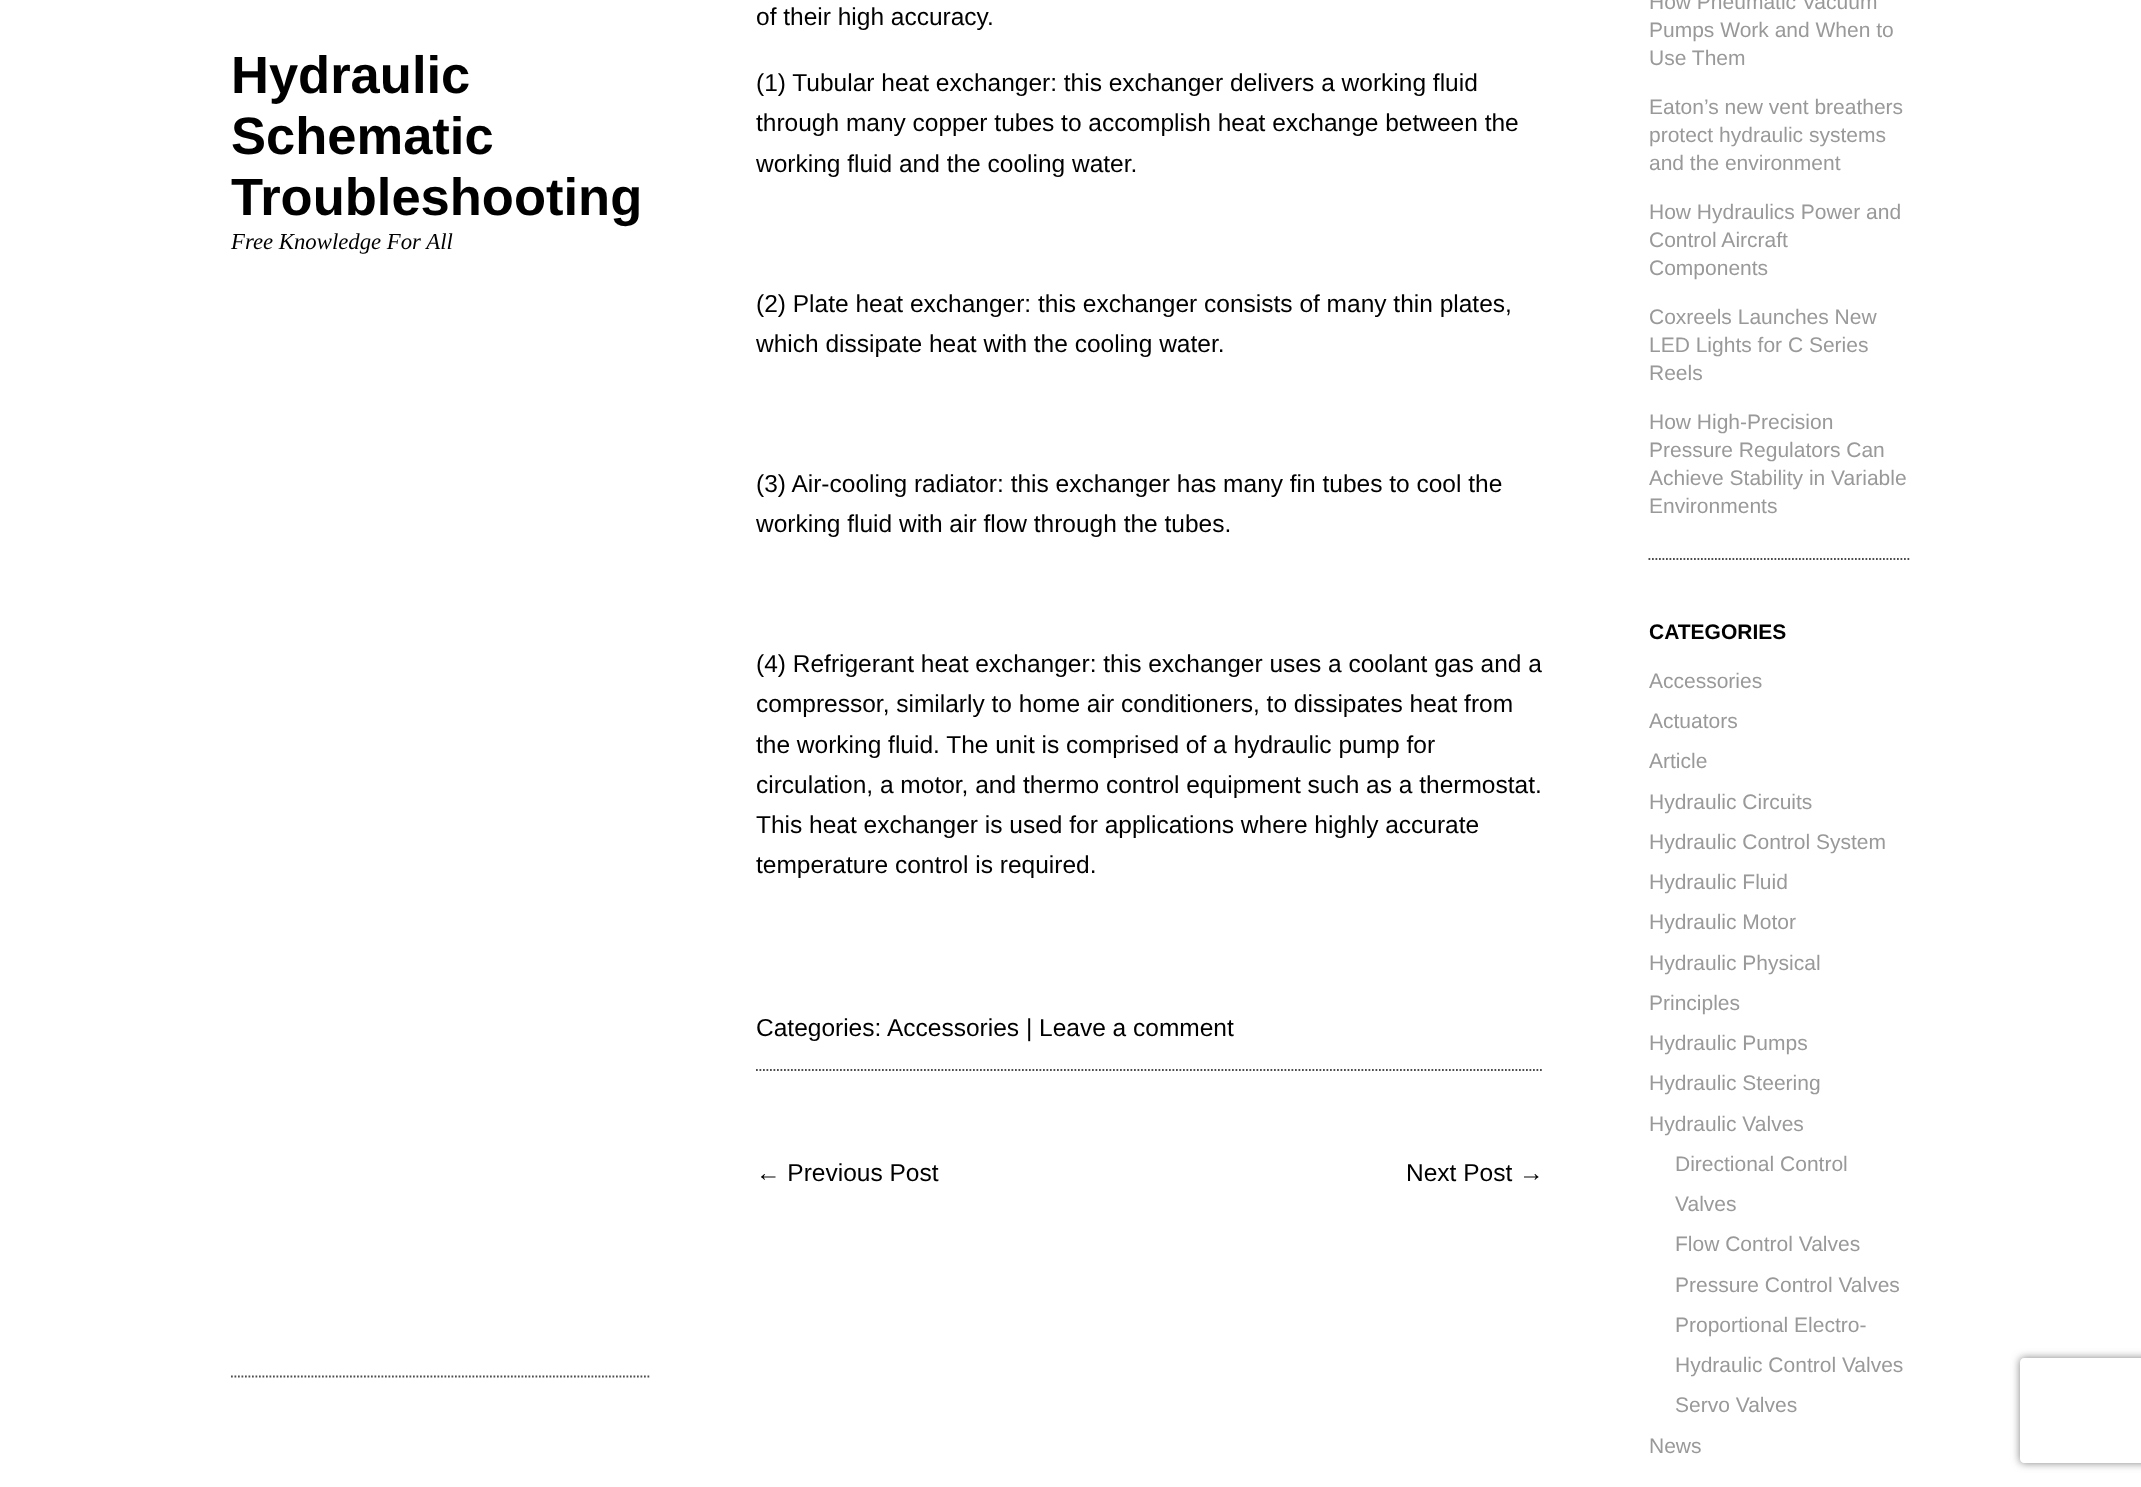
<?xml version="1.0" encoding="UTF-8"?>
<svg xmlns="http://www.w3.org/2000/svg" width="2141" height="1487">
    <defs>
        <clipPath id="clip1"><path d="M 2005 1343 H 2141 V 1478 H 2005 Z M 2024 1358 H 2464 C 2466 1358 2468 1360 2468 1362 V 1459 C 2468 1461 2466 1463 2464 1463 H 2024 C 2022 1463 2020 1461 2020 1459 V 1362 C 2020 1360 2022 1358 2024 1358 Z" clip-rule="evenodd"/></clipPath>
        <filter id="blur1" x="-50%" y="-200%" width="200%" height="500%"><feGaussianBlur stdDeviation="4.5"/></filter>
    </defs>
    <rect width="100%" height="100%" fill="#FFFFFF"/>
    <text font-family="Liberation Sans" font-size="52.5" font-weight="700" fill="#000000">
        <tspan x="231" y="93">Hydraulic</tspan>
        <tspan x="231" y="154">Schematic</tspan>
        <tspan x="231" y="215">Troubleshooting</tspan>
    </text>
    <text x="231" y="249" font-family="Liberation Serif" font-size="22.75" font-style="italic" fill="#000000">Free Knowledge For All</text>
    <path d="M 231 1376.5 H 651" fill="none" stroke="#4C4C4C" stroke-width="1.8" stroke-dasharray="1.75 1.75"/>
    <path d="M 756 1070 H 1543.5" fill="none" stroke="#4C4C4C" stroke-width="1.8" stroke-dasharray="1.75 1.75"/>
    <text x="756" y="25" font-family="Liberation Sans" font-size="24.5" fill="#000000">of their high accuracy.</text>
    <text font-family="Liberation Sans" font-size="24.5" fill="#000000">
        <tspan x="756" y="91">(1) Tubular heat exchanger: this exchanger delivers a working fluid</tspan>
        <tspan x="756" y="131">through many copper tubes to accomplish heat exchange between the</tspan>
        <tspan x="756" y="172">working fluid and the cooling water.</tspan>
    </text>
    <text font-family="Liberation Sans" font-size="24.5" fill="#000000">
        <tspan x="756" y="312">(2) Plate heat exchanger: this exchanger consists of many thin plates,</tspan>
        <tspan x="756" y="352">which dissipate heat with the cooling water.</tspan>
    </text>
    <text font-family="Liberation Sans" font-size="24.5" fill="#000000">
        <tspan x="756" y="492">(3) Air-cooling radiator: this exchanger has many fin tubes to cool the</tspan>
        <tspan x="756" y="532">working fluid with air flow through the tubes.</tspan>
    </text>
    <text font-family="Liberation Sans" font-size="24.5" fill="#000000">
        <tspan x="756" y="672">(4) Refrigerant heat exchanger: this exchanger uses a coolant gas and a</tspan>
        <tspan x="756" y="712">compressor, similarly to home air conditioners, to dissipates heat from</tspan>
        <tspan x="756" y="753">the working fluid. The unit is comprised of a hydraulic pump for</tspan>
        <tspan x="756" y="793">circulation, a motor, and thermo control equipment such as a thermostat.</tspan>
        <tspan x="756" y="833">This heat exchanger is used for applications where highly accurate</tspan>
        <tspan x="756" y="873">temperature control is required.</tspan>
    </text>
    <text x="756" y="1036" font-family="Liberation Sans" font-size="24.5" fill="#000000">Categories:</text>
    <text x="887" y="1036" font-family="Liberation Sans" font-size="24.5" fill="#000000">Accessories | Leave a comment</text>
    <text x="756" y="1181" font-family="Liberation Sans" font-size="24.5" fill="#000000">← Previous Post</text>
    <text x="1406" y="1181" font-family="Liberation Sans" font-size="24.5" fill="#000000">Next Post →</text>
    <path d="M 1648.5 559 H 1911" fill="none" stroke="#4C4C4C" stroke-width="1.8" stroke-dasharray="1.75 1.75"/>
    <text font-family="Liberation Sans" font-size="21" fill="#999999">
        <tspan x="1649" y="9">How Pneumatic Vacuum</tspan>
        <tspan x="1649" y="37">Pumps Work and When to</tspan>
        <tspan x="1649" y="65">Use Them</tspan>
    </text>
    <text font-family="Liberation Sans" font-size="21" fill="#999999">
        <tspan x="1649" y="114">Eaton’s new vent breathers</tspan>
        <tspan x="1649" y="142">protect hydraulic systems</tspan>
        <tspan x="1649" y="170">and the environment</tspan>
    </text>
    <text font-family="Liberation Sans" font-size="21" fill="#999999">
        <tspan x="1649" y="219">How Hydraulics Power and</tspan>
        <tspan x="1649" y="247">Control Aircraft</tspan>
        <tspan x="1649" y="275">Components</tspan>
    </text>
    <text font-family="Liberation Sans" font-size="21" fill="#999999">
        <tspan x="1649" y="324">Coxreels Launches New</tspan>
        <tspan x="1649" y="352">LED Lights for C Series</tspan>
        <tspan x="1649" y="380">Reels</tspan>
    </text>
    <text font-family="Liberation Sans" font-size="21" fill="#999999">
        <tspan x="1649" y="429">How High-Precision</tspan>
        <tspan x="1649" y="457">Pressure Regulators Can</tspan>
        <tspan x="1649" y="485">Achieve Stability in Variable</tspan>
        <tspan x="1649" y="513">Environments</tspan>
    </text>
    <text x="1649" y="639" font-family="Liberation Sans" font-size="21" font-weight="700" fill="#000000">CATEGORIES</text>
    <text font-family="Liberation Sans" font-size="21" fill="#999999">
        <tspan x="1649" y="688">Accessories</tspan>
        <tspan x="1649" y="728">Actuators</tspan>
        <tspan x="1649" y="768">Article</tspan>
        <tspan x="1649" y="809">Hydraulic Circuits</tspan>
        <tspan x="1649" y="849">Hydraulic Control System</tspan>
        <tspan x="1649" y="889">Hydraulic Fluid</tspan>
        <tspan x="1649" y="929">Hydraulic Motor</tspan>
        <tspan x="1649" y="970">Hydraulic Physical</tspan>
        <tspan x="1649" y="1010">Principles</tspan>
        <tspan x="1649" y="1050">Hydraulic Pumps</tspan>
        <tspan x="1649" y="1090">Hydraulic Steering</tspan>
        <tspan x="1649" y="1131">Hydraulic Valves</tspan>
    </text>
    <text font-family="Liberation Sans" font-size="21" fill="#999999">
        <tspan x="1675" y="1171">Directional Control</tspan>
        <tspan x="1675" y="1211">Valves</tspan>
        <tspan x="1675" y="1251">Flow Control Valves</tspan>
        <tspan x="1675" y="1292">Pressure Control Valves</tspan>
        <tspan x="1675" y="1332">Proportional Electro-</tspan>
        <tspan x="1675" y="1372">Hydraulic Control Valves</tspan>
        <tspan x="1675" y="1412">Servo Valves</tspan>
    </text>
    <text x="1649" y="1453" font-family="Liberation Sans" font-size="21" fill="#999999">News</text>
    <g clip-path="url(#clip1)">
        <rect x="2020" y="1358" width="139" height="105" rx="4" fill="#808080" filter="url(#blur1)"/>
    </g>
</svg>
